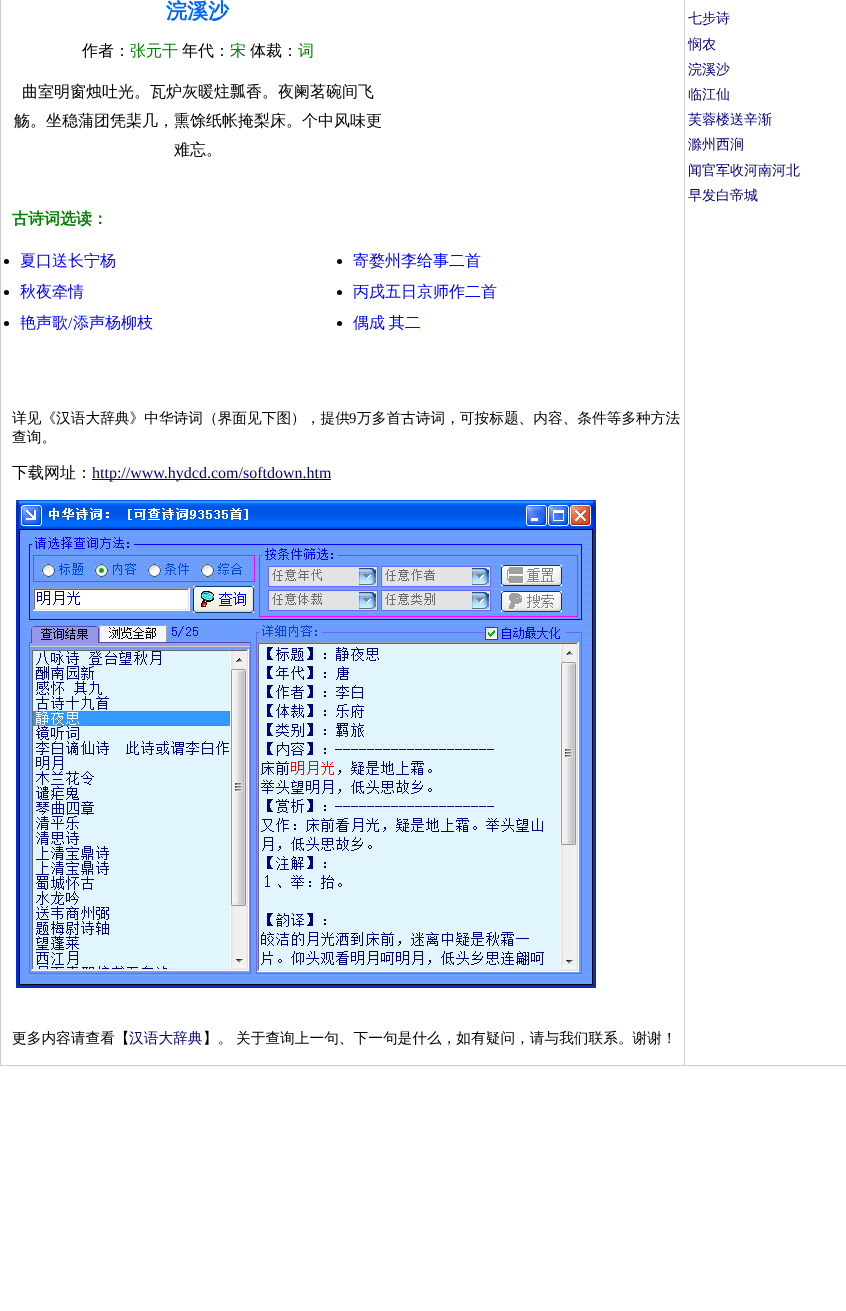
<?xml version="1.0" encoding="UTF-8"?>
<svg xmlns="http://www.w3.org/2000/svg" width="846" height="1311">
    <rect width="100%" height="100%" fill="#FFFFFF"/>
    <rect x="0" y="1065" width="846" height="1" fill="#CCCCCC"/>
    <rect x="0" y="0" width="1" height="1066" fill="#CCCCCC"/>
    <text x="166" y="18" font-family="WenQuanYi Zen Hei" font-size="21" font-weight="700" fill="#0066FF">浣溪沙</text>
    <text x="82" y="56" font-family="WenQuanYi Zen Hei" font-size="16" font-weight="500" fill="#000000">作者：</text>
    <text x="130" y="56" font-family="WenQuanYi Zen Hei" font-size="16" font-weight="500" fill="#008000">张元干</text>
    <text x="182" y="56" font-family="WenQuanYi Zen Hei" font-size="16" font-weight="500" fill="#000000">年代：</text>
    <text x="230" y="56" font-family="WenQuanYi Zen Hei" font-size="16" font-weight="500" fill="#008000">宋</text>
    <text x="250" y="56" font-family="WenQuanYi Zen Hei" font-size="16" font-weight="500" fill="#000000">体裁：</text>
    <text x="298" y="56" font-family="WenQuanYi Zen Hei" font-size="16" font-weight="500" fill="#008000">词</text>
    <text x="22" y="97" font-family="WenQuanYi Zen Hei" font-size="16" font-weight="500" fill="#000000">曲室明窗烛吐光。瓦炉灰暖炷瓢香。夜阑茗碗间飞</text>
    <text x="14" y="126" font-family="WenQuanYi Zen Hei" font-size="16" font-weight="500" fill="#000000">觞。坐稳蒲团凭棐几，熏馀纸帐掩梨床。个中风味更</text>
    <text x="174" y="155" font-family="WenQuanYi Zen Hei" font-size="16" font-weight="500" fill="#000000">难忘。</text>
    <text x="12" y="224" font-family="WenQuanYi Zen Hei" font-size="16" font-weight="700" fill="#008000">古诗词选读：</text>
    <circle cx="6.5" cy="261.5" r="2.5" fill="#000000"/>
    <text x="20" y="266" font-family="WenQuanYi Zen Hei" font-size="16" font-weight="500" fill="#0000FF">夏口送长宁杨</text>
    <circle cx="339.5" cy="261.5" r="2.5" fill="#000000"/>
    <text x="353" y="266" font-family="WenQuanYi Zen Hei" font-size="16" font-weight="500" fill="#0000FF">寄婺州李给事二首</text>
    <circle cx="6.5" cy="292.5" r="2.5" fill="#000000"/>
    <text x="20" y="297" font-family="WenQuanYi Zen Hei" font-size="16" font-weight="500" fill="#0000FF">秋夜牵情</text>
    <circle cx="339.5" cy="292.5" r="2.5" fill="#000000"/>
    <text x="353" y="297" font-family="WenQuanYi Zen Hei" font-size="16" font-weight="500" fill="#0000FF">丙戌五日京师作二首</text>
    <circle cx="6.5" cy="323.5" r="2.5" fill="#000000"/>
    <text x="20" y="328" font-family="WenQuanYi Zen Hei" font-size="16" font-weight="500" fill="#0000FF">艳声歌</text>
    <text x="68" y="328" font-family="Liberation Serif" font-size="16" fill="#0000FF">/</text>
    <text x="73" y="328" font-family="WenQuanYi Zen Hei" font-size="16" font-weight="500" fill="#0000FF">添声杨柳枝</text>
    <circle cx="339.5" cy="323.5" r="2.5" fill="#000000"/>
    <text x="353" y="328" word-spacing="-1" font-family="WenQuanYi Zen Hei" font-size="16" font-weight="500" fill="#0000FF">偶成 其二</text>
    <text x="12" y="423" font-family="WenQuanYi Zen Hei" font-size="14.7" font-weight="500" fill="#000000">详见《汉语大辞典》中华诗词（界面见下图），提供</text>
    <text x="349" y="423" font-family="Liberation Serif" font-size="14.7" fill="#000000">9</text>
    <text x="357" y="423" font-family="WenQuanYi Zen Hei" font-size="14.7" font-weight="500" fill="#000000">万多首古诗词，可按标题、内容、条件等多种方法</text>
    <text x="12" y="442" font-family="WenQuanYi Zen Hei" font-size="14.7" font-weight="500" fill="#000000">查询。</text>
    <text x="12" y="478" font-family="WenQuanYi Zen Hei" font-size="16" font-weight="500" fill="#000000">下载网址：</text>
    <rect x="92" y="479" width="239" height="1" fill="#000077"/>
    <text x="92" y="478" font-family="Liberation Serif" font-size="16" fill="#000077">http://www.hydcd.com/softdown.htm</text>
    <image x="16" y="500" width="580" height="488" href="img_01.png"/>
    <text x="12" y="1043" font-family="WenQuanYi Zen Hei" font-size="14.7" font-weight="500" fill="#000000">更多内容请查看【</text>
    <text x="129" y="1043" font-family="WenQuanYi Zen Hei" font-size="14.7" font-weight="500" fill="#000077">汉语大辞典</text>
    <text x="203" y="1043" font-family="WenQuanYi Zen Hei" font-size="14.7" font-weight="500" fill="#000000">】。</text>
    <text x="236" y="1043" font-family="WenQuanYi Zen Hei" font-size="14.7" font-weight="500" fill="#000000">关于查询上一句、下一句是什么，如有疑问，请与我们联系。谢谢！</text>
    <rect x="684" y="0" width="1" height="1066" fill="#CCCCCC"/>
    <text font-family="WenQuanYi Zen Hei" font-size="14" font-weight="500" fill="#000077">
        <tspan x="688" y="23">七步诗</tspan>
        <tspan x="688" y="49">悯农</tspan>
        <tspan x="688" y="74">浣溪沙</tspan>
        <tspan x="688" y="99">临江仙</tspan>
        <tspan x="688" y="124">芙蓉楼送辛渐</tspan>
        <tspan x="688" y="149">滁州西涧</tspan>
        <tspan x="688" y="175">闻官军收河南河北</tspan>
        <tspan x="688" y="200">早发白帝城</tspan>
    </text>
</svg>
